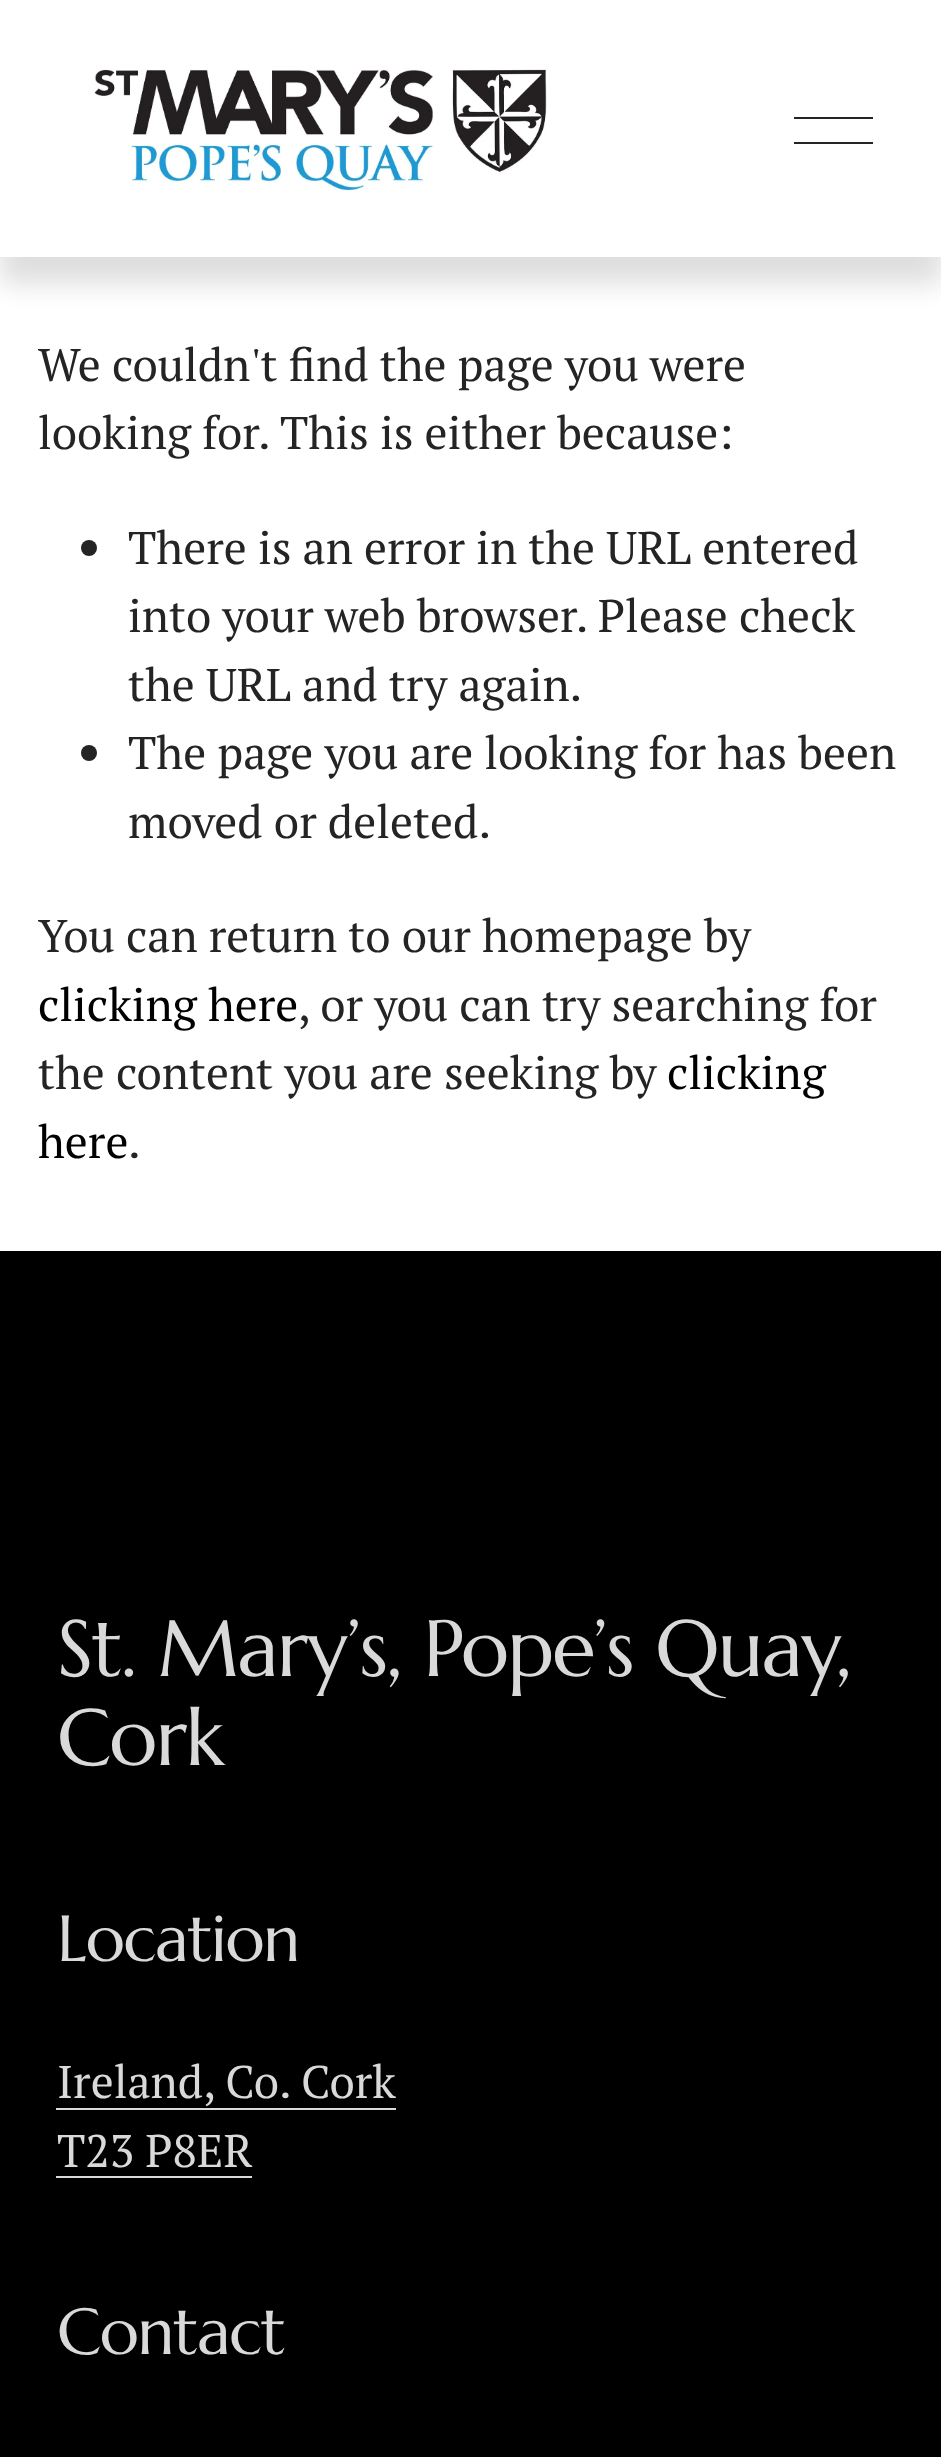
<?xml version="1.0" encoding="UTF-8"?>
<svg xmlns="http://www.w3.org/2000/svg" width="941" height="2457">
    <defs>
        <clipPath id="clip1"><path d="M 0 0 H 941 V 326 H 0 Z M 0 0 H 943 V 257 H 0 Z" clip-rule="evenodd"/></clipPath>
        <filter id="blur1" x="-50%" y="-200%" width="200%" height="500%"><feGaussianBlur stdDeviation="13.5"/></filter>
    </defs>
    <rect width="100%" height="100%" fill="#FFFFFF"/>
    <g clip-path="url(#clip1)">
        <rect x="0" y="27" width="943" height="257" fill="#DEDEDE" filter="url(#blur1)"/>
    </g>
    <image x="94" y="69" width="453" height="122" href="img_01.png"/>
    <rect x="794" y="117" width="79" height="2" fill="#242424"/>
    <rect x="794" y="142" width="79" height="2" fill="#242424"/>
    <text font-family="PT Serif" font-size="45.75" fill="#242424">
        <tspan x="38" y="381">We couldn't find the page you were</tspan>
        <tspan x="38" y="449">looking for. This is either because:</tspan>
    </text>
    <circle cx="89" cy="548" r="8" fill="#242424"/>
    <text font-family="PT Serif" font-size="45.75" fill="#242424">
        <tspan x="128" y="564">There is an error in the URL entered</tspan>
        <tspan x="128" y="632">into your web browser. Please check</tspan>
        <tspan x="128" y="701">the URL and try again.</tspan>
    </text>
    <circle cx="89" cy="753" r="8" fill="#242424"/>
    <text font-family="PT Serif" font-size="45.75" fill="#242424">
        <tspan x="128" y="769">The page you are looking for has been</tspan>
        <tspan x="128" y="838">moved or deleted.</tspan>
    </text>
    <text x="38" y="952" font-family="PT Serif" font-size="45.75" fill="#242424">You can return to our homepage by</text>
    <text x="38" y="1021" font-family="PT Serif" font-size="45.75" fill="#000000">clicking here</text>
    <text x="298" y="1021" font-family="PT Serif" font-size="45.75" fill="#242424">, or you can try searching for</text>
    <text x="38" y="1089" font-family="PT Serif" font-size="45.75" fill="#242424">the content you are seeking by</text>
    <text x="667" y="1089" font-family="PT Serif" font-size="45.75" fill="#000000">clicking</text>
    <text x="38" y="1158" font-family="PT Serif" font-size="45.75" fill="#000000">here</text>
    <text x="128" y="1158" font-family="PT Serif" font-size="45.75" fill="#242424">.</text>
    <rect x="0" y="1251" width="941" height="1206" fill="#000000"/>
    <text font-family="Marcellus" font-size="79.75" letter-spacing="-1.6" fill="#D9D9D9">
        <tspan x="57" y="1676">St. Mary’s, Pope’s Quay,</tspan>
        <tspan x="57" y="1765">Cork</tspan>
    </text>
    <text x="57" y="1961" font-family="Marcellus" font-size="65" letter-spacing="-1.25" fill="#D9D9D9">Location</text>
    <text x="57" y="2098" font-family="PT Serif" font-size="45.75" fill="#D9D9D9">Ireland, Co. Cork</text>
    <rect x="56" y="2108" width="340" height="2" fill="#D9D9D9"/>
    <text x="57" y="2167" font-family="PT Serif" font-size="45.75" fill="#D9D9D9">T23 P8ER</text>
    <rect x="56" y="2176" width="196" height="2" fill="#D9D9D9"/>
    <text x="57" y="2354" font-family="Marcellus" font-size="65" letter-spacing="-1.25" fill="#D9D9D9">Contact</text>
</svg>
